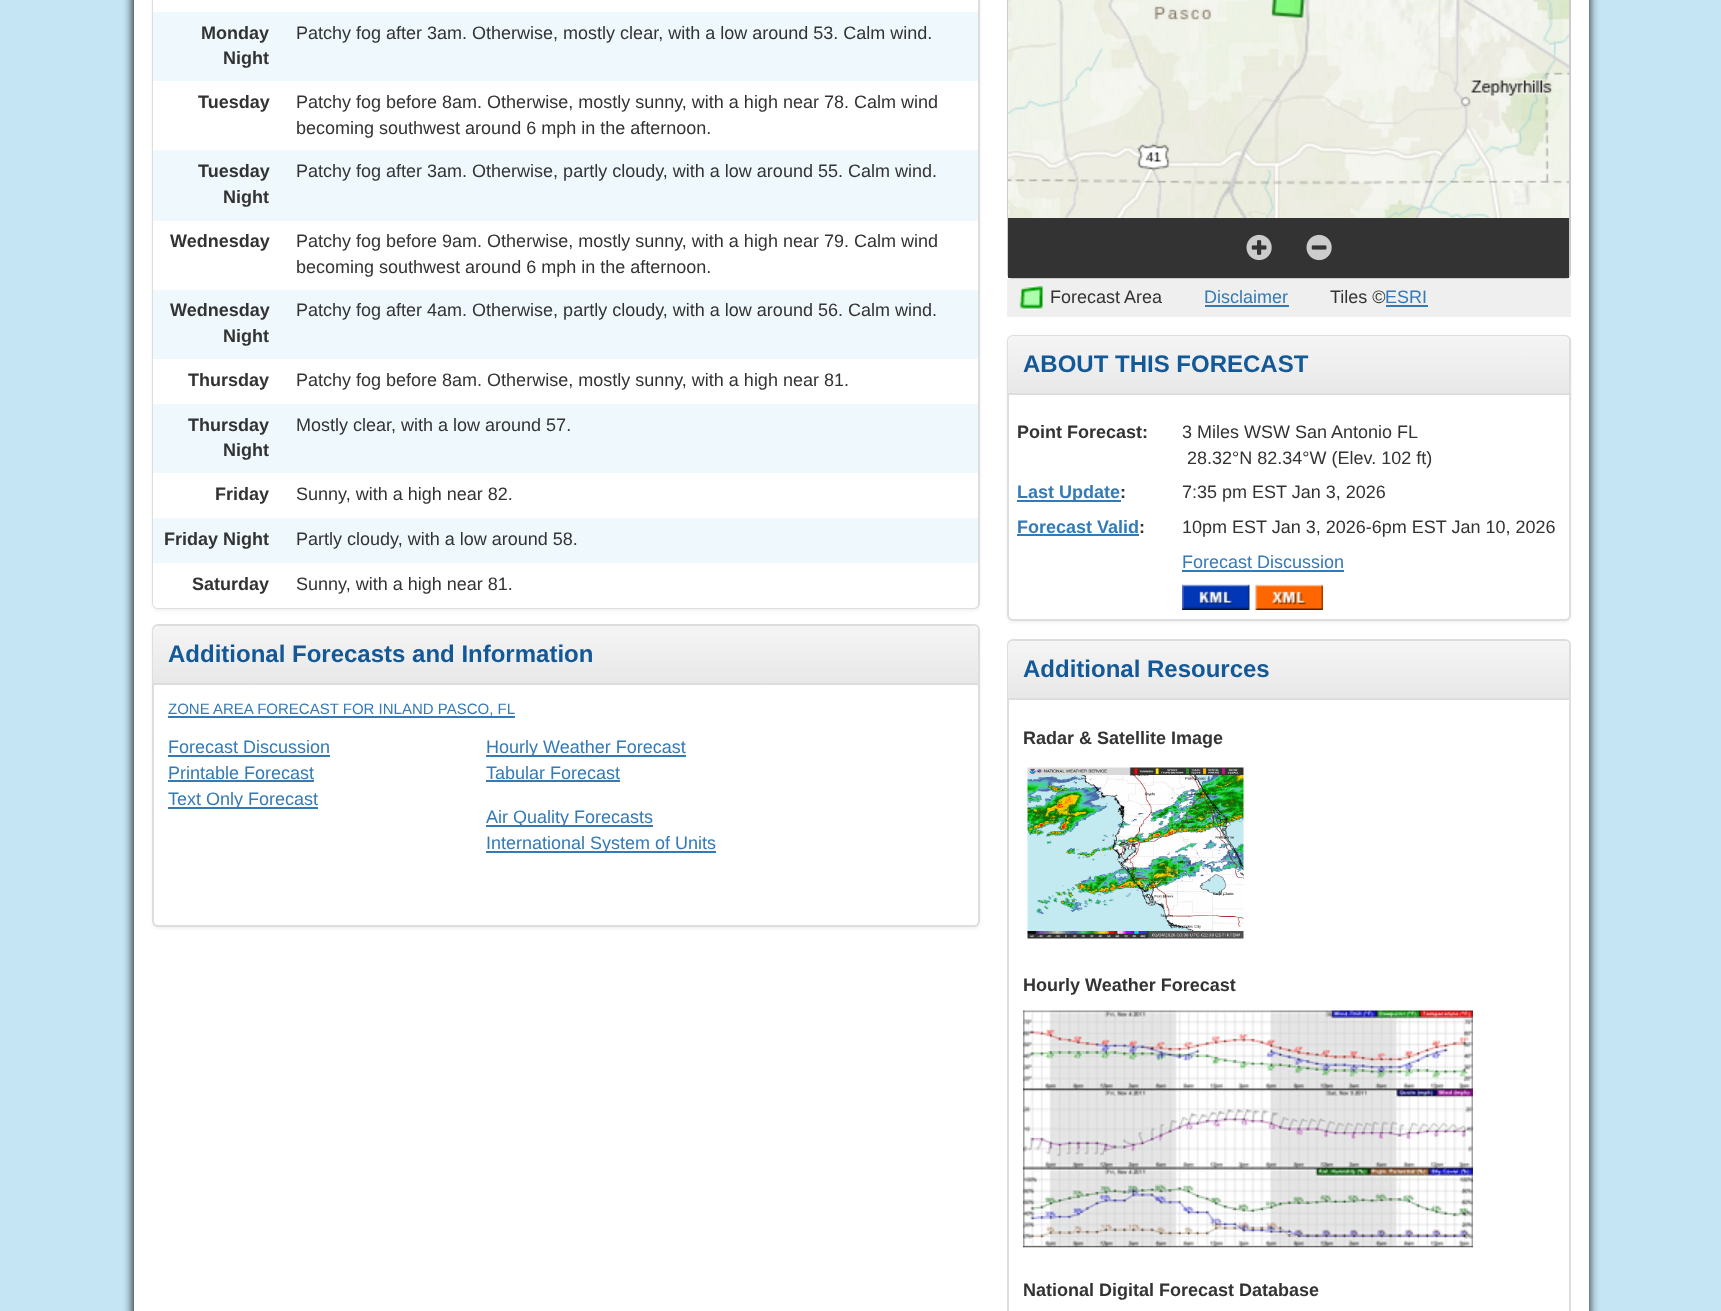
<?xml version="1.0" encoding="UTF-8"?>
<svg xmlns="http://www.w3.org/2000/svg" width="1721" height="1311">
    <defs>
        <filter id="blur1" x="-50%" y="-200%" width="200%" height="500%"><feGaussianBlur stdDeviation="4"/></filter>
        <filter id="blur2" x="-50%" y="-200%" width="200%" height="500%"><feGaussianBlur stdDeviation="1.5"/></filter>
        <linearGradient id="g1" gradientUnits="userSpaceOnUse" x1="566" y1="625" x2="566" y2="683"><stop offset="0" stop-color="#F5F5F5"/><stop offset="1" stop-color="#E8E8E8"/></linearGradient>
        <linearGradient id="g2" gradientUnits="userSpaceOnUse" x1="1289" y1="336" x2="1289" y2="393"><stop offset="0" stop-color="#F5F5F5"/><stop offset="1" stop-color="#E8E8E8"/></linearGradient>
        <linearGradient id="g3" gradientUnits="userSpaceOnUse" x1="1289" y1="641" x2="1289" y2="698"><stop offset="0" stop-color="#F5F5F5"/><stop offset="1" stop-color="#E8E8E8"/></linearGradient>
    </defs>
    <rect width="100%" height="100%" fill="#C5E5F5"/>
    <rect x="132" y="-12" width="1458" height="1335" fill="#333333" filter="url(#blur1)"/>
    <rect x="134" y="0" width="1455" height="1311" fill="#FFFFFF"/>
    <rect x="152" y="-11" width="828" height="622" rx="6" fill="#000000" fill-opacity="0.05" filter="url(#blur2)"/>
    <rect x="153" y="-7" width="826" height="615" rx="5" fill="none" stroke="#DDDDDD" stroke-width="2"/>
    <rect x="153" y="0" width="825" height="12" fill="#FFFFFF"/>
    <rect x="153" y="12" width="825" height="69" fill="#EFF8FD"/>
    <text x="201" y="39" font-family="Liberation Sans" font-size="18" font-weight="700" fill="#333333">Monday</text>
    <text x="223" y="64" font-family="Liberation Sans" font-size="18" font-weight="700" fill="#333333">Night</text>
    <text x="296" y="39" font-family="Liberation Sans" font-size="18" fill="#333333">Patchy fog after 3am. Otherwise, mostly clear, with a low around 53. Calm wind.</text>
    <rect x="153" y="81" width="825" height="69" fill="#FFFFFF"/>
    <text x="198" y="108" font-family="Liberation Sans" font-size="18" font-weight="700" fill="#333333">Tuesday</text>
    <text font-family="Liberation Sans" font-size="18" fill="#333333">
        <tspan x="296" y="108">Patchy fog before 8am. Otherwise, mostly sunny, with a high near 78. Calm wind</tspan>
        <tspan x="296" y="134">becoming southwest around 6 mph in the afternoon.</tspan>
    </text>
    <rect x="153" y="150" width="825" height="71" fill="#EFF8FD"/>
    <text x="198" y="177" font-family="Liberation Sans" font-size="18" font-weight="700" fill="#333333">Tuesday</text>
    <text x="223" y="203" font-family="Liberation Sans" font-size="18" font-weight="700" fill="#333333">Night</text>
    <text x="296" y="177" font-family="Liberation Sans" font-size="18" fill="#333333">Patchy fog after 3am. Otherwise, partly cloudy, with a low around 55. Calm wind.</text>
    <rect x="153" y="221" width="825" height="69" fill="#FFFFFF"/>
    <text x="170" y="247" font-family="Liberation Sans" font-size="18" font-weight="700" fill="#333333">Wednesday</text>
    <text font-family="Liberation Sans" font-size="18" fill="#333333">
        <tspan x="296" y="247">Patchy fog before 9am. Otherwise, mostly sunny, with a high near 79. Calm wind</tspan>
        <tspan x="296" y="273">becoming southwest around 6 mph in the afternoon.</tspan>
    </text>
    <rect x="153" y="290" width="825" height="69" fill="#EFF8FD"/>
    <text x="170" y="316" font-family="Liberation Sans" font-size="18" font-weight="700" fill="#333333">Wednesday</text>
    <text x="223" y="342" font-family="Liberation Sans" font-size="18" font-weight="700" fill="#333333">Night</text>
    <text x="296" y="316" font-family="Liberation Sans" font-size="18" fill="#333333">Patchy fog after 4am. Otherwise, partly cloudy, with a low around 56. Calm wind.</text>
    <rect x="153" y="359" width="825" height="45" fill="#FFFFFF"/>
    <text x="188" y="386" font-family="Liberation Sans" font-size="18" font-weight="700" fill="#333333">Thursday</text>
    <text x="296" y="386" font-family="Liberation Sans" font-size="18" fill="#333333">Patchy fog before 8am. Otherwise, mostly sunny, with a high near 81.</text>
    <rect x="153" y="404" width="825" height="69" fill="#EFF8FD"/>
    <text x="188" y="431" font-family="Liberation Sans" font-size="18" font-weight="700" fill="#333333">Thursday</text>
    <text x="223" y="456" font-family="Liberation Sans" font-size="18" font-weight="700" fill="#333333">Night</text>
    <text x="296" y="431" font-family="Liberation Sans" font-size="18" fill="#333333">Mostly clear, with a low around 57.</text>
    <rect x="153" y="473" width="825" height="45" fill="#FFFFFF"/>
    <text x="215" y="500" font-family="Liberation Sans" font-size="18" font-weight="700" fill="#333333">Friday</text>
    <text x="296" y="500" font-family="Liberation Sans" font-size="18" fill="#333333">Sunny, with a high near 82.</text>
    <rect x="153" y="518" width="825" height="45" fill="#EFF8FD"/>
    <text x="164" y="545" font-family="Liberation Sans" font-size="18" font-weight="700" fill="#333333">Friday Night</text>
    <text x="296" y="545" font-family="Liberation Sans" font-size="18" fill="#333333">Partly cloudy, with a low around 58.</text>
    <path d="M 153 563 H 978 V 603 C 978 606 976 608 973 608 H 158 C 155 608 153 606 153 603 Z" fill="#FFFFFF"/>
    <text x="192" y="590" font-family="Liberation Sans" font-size="18" font-weight="700" fill="#333333">Saturday</text>
    <text x="296" y="590" font-family="Liberation Sans" font-size="18" fill="#333333">Sunny, with a high near 81.</text>
    <rect x="152" y="626" width="828" height="303" rx="6" fill="#000000" fill-opacity="0.05" filter="url(#blur2)"/>
    <rect x="153" y="625" width="826" height="301" rx="5" fill="#FFFFFF" stroke="#DDDDDD" stroke-width="2"/>
    <path d="M 158 626 H 973 C 976 626 978 628 978 631 V 683 H 153 V 631 C 153 628 155 626 158 626 Z" fill="url(#g1)"/>
    <rect x="153" y="683" width="825" height="2" fill="#DDDDDD"/>
    <text x="168" y="662" font-family="Liberation Sans" font-size="24" font-weight="700" fill="#135897">Additional Forecasts and Information</text>
    <text x="168" y="714" font-family="Liberation Sans" font-size="15" fill="#337AB7">ZONE AREA FORECAST FOR INLAND PASCO, FL</text>
    <rect x="168" y="716" width="347" height="2" fill="#337AB7"/>
    <text x="168" y="753" font-family="Liberation Sans" font-size="18" fill="#337AB7">Forecast Discussion</text>
    <rect x="168" y="755" width="162" height="2" fill="#337AB7"/>
    <text x="168" y="779" font-family="Liberation Sans" font-size="18" fill="#337AB7">Printable Forecast</text>
    <rect x="168" y="780" width="146" height="2" fill="#337AB7"/>
    <rect x="168" y="807" width="150" height="2" fill="#337AB7"/>
    <text x="168" y="805" font-family="Liberation Sans" font-size="18" fill="#337AB7">Text Only Forecast</text>
    <rect x="486" y="755" width="200" height="2" fill="#337AB7"/>
    <text font-family="Liberation Sans" font-size="18" fill="#337AB7">
        <tspan x="486" y="753">Hourly Weather Forecast</tspan>
        <tspan x="486" y="779">Tabular Forecast</tspan>
    </text>
    <rect x="486" y="780" width="134" height="2" fill="#337AB7"/>
    <rect x="486" y="825" width="167" height="2" fill="#337AB7"/>
    <text x="486" y="823" font-family="Liberation Sans" font-size="18" fill="#337AB7">Air Quality Forecasts</text>
    <rect x="486" y="851" width="230" height="2" fill="#337AB7"/>
    <text x="486" y="849" font-family="Liberation Sans" font-size="18" fill="#337AB7">International System of Units</text>
    <rect x="1008" y="-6" width="562" height="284" rx="4" fill="none" stroke="#CCCCCC" stroke-width="2"/>
    <image x="1008" y="0" width="561" height="218" href="img_01.png"/>
    <rect x="1008" y="218" width="561" height="60" fill="#333333"/>
    <image x="1246" y="234" width="26" height="27" href="img_02.png"/>
    <image x="1306" y="234" width="26" height="27" href="img_03.png"/>
    <rect x="1007" y="279" width="564" height="38" fill="#EFEFEF"/>
    <image x="1019" y="286" width="25" height="24" href="img_04.png"/>
    <text x="1050" y="303" font-family="Liberation Sans" font-size="18" fill="#333333">Forecast Area</text>
    <text x="1204" y="303" font-family="Liberation Sans" font-size="18" fill="#337AB7">Disclaimer</text>
    <rect x="1205" y="305" width="84" height="2" fill="#337AB7"/>
    <text x="1330" y="303" font-family="Liberation Sans" font-size="18" fill="#333333">Tiles ©</text>
    <text x="1385" y="303" font-family="Liberation Sans" font-size="18" fill="#337AB7">ESRI</text>
    <rect x="1386" y="305" width="42" height="2" fill="#337AB7"/>
    <rect x="1007" y="336" width="564" height="287" rx="6" fill="#000000" fill-opacity="0.05" filter="url(#blur2)"/>
    <rect x="1008" y="336" width="562" height="284" rx="5" fill="#FFFFFF" stroke="#DDDDDD" stroke-width="2"/>
    <path d="M 1013 336 H 1564 C 1567 336 1569 338 1569 341 V 393 H 1008 V 341 C 1008 338 1010 336 1013 336 Z" fill="url(#g2)"/>
    <rect x="1008" y="393" width="561" height="2" fill="#DDDDDD"/>
    <text x="1023" y="372" font-family="Liberation Sans" font-size="24" font-weight="700" fill="#135897">ABOUT THIS FORECAST</text>
    <text x="1017" y="438" font-family="Liberation Sans" font-size="18" font-weight="700" fill="#333333">Point Forecast:</text>
    <text x="1182" y="438" font-family="Liberation Sans" font-size="18" fill="#333333">3 Miles WSW San Antonio FL</text>
    <text x="1187" y="464" font-family="Liberation Sans" font-size="18" fill="#333333">28.32°N 82.34°W (Elev. 102 ft)</text>
    <rect x="1017" y="500" width="104" height="2" fill="#337AB7"/>
    <text x="1017" y="498" font-family="Liberation Sans" font-size="18" font-weight="700" fill="#337AB7">Last Update</text>
    <text x="1120" y="498" font-family="Liberation Sans" font-size="18" font-weight="700" fill="#333333">:</text>
    <text x="1182" y="498" font-family="Liberation Sans" font-size="18" fill="#333333">7:35 pm EST Jan 3, 2026</text>
    <text x="1017" y="533" font-family="Liberation Sans" font-size="18" font-weight="700" fill="#337AB7">Forecast Valid</text>
    <rect x="1017" y="534" width="122" height="2" fill="#337AB7"/>
    <text x="1139" y="533" font-family="Liberation Sans" font-size="18" font-weight="700" fill="#333333">:</text>
    <text x="1182" y="533" font-family="Liberation Sans" font-size="18" fill="#333333">10pm EST Jan 3, 2026-6pm EST Jan 10, 2026</text>
    <text x="1182" y="568" font-family="Liberation Sans" font-size="18" fill="#337AB7">Forecast Discussion</text>
    <rect x="1182" y="570" width="162" height="2" fill="#337AB7"/>
    <image x="1182" y="584" width="68" height="26" href="img_05.png"/>
    <image x="1255" y="584" width="68" height="26" href="img_06.png"/>
    <rect x="1008" y="640" width="562" height="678" rx="5" fill="none" stroke="#DDDDDD" stroke-width="2"/>
    <path d="M 1013 641 H 1564 C 1567 641 1569 643 1569 646 V 698 H 1008 V 646 C 1008 643 1010 641 1013 641 Z" fill="url(#g3)"/>
    <rect x="1008" y="698" width="561" height="2" fill="#DDDDDD"/>
    <text x="1023" y="677" font-family="Liberation Sans" font-size="24" font-weight="700" fill="#135897">Additional Resources</text>
    <text x="1023" y="744" font-family="Liberation Sans" font-size="18" font-weight="700" fill="#333333">Radar &amp; Satellite Image</text>
    <image x="1027" y="767" width="217" height="172" href="img_07.png"/>
    <text x="1023" y="991" font-family="Liberation Sans" font-size="18" font-weight="700" fill="#333333">Hourly Weather Forecast</text>
    <image x="1023" y="1010" width="450" height="238" href="img_08.png"/>
    <text x="1023" y="1296" font-family="Liberation Sans" font-size="18" font-weight="700" fill="#333333">National Digital Forecast Database</text>
</svg>
